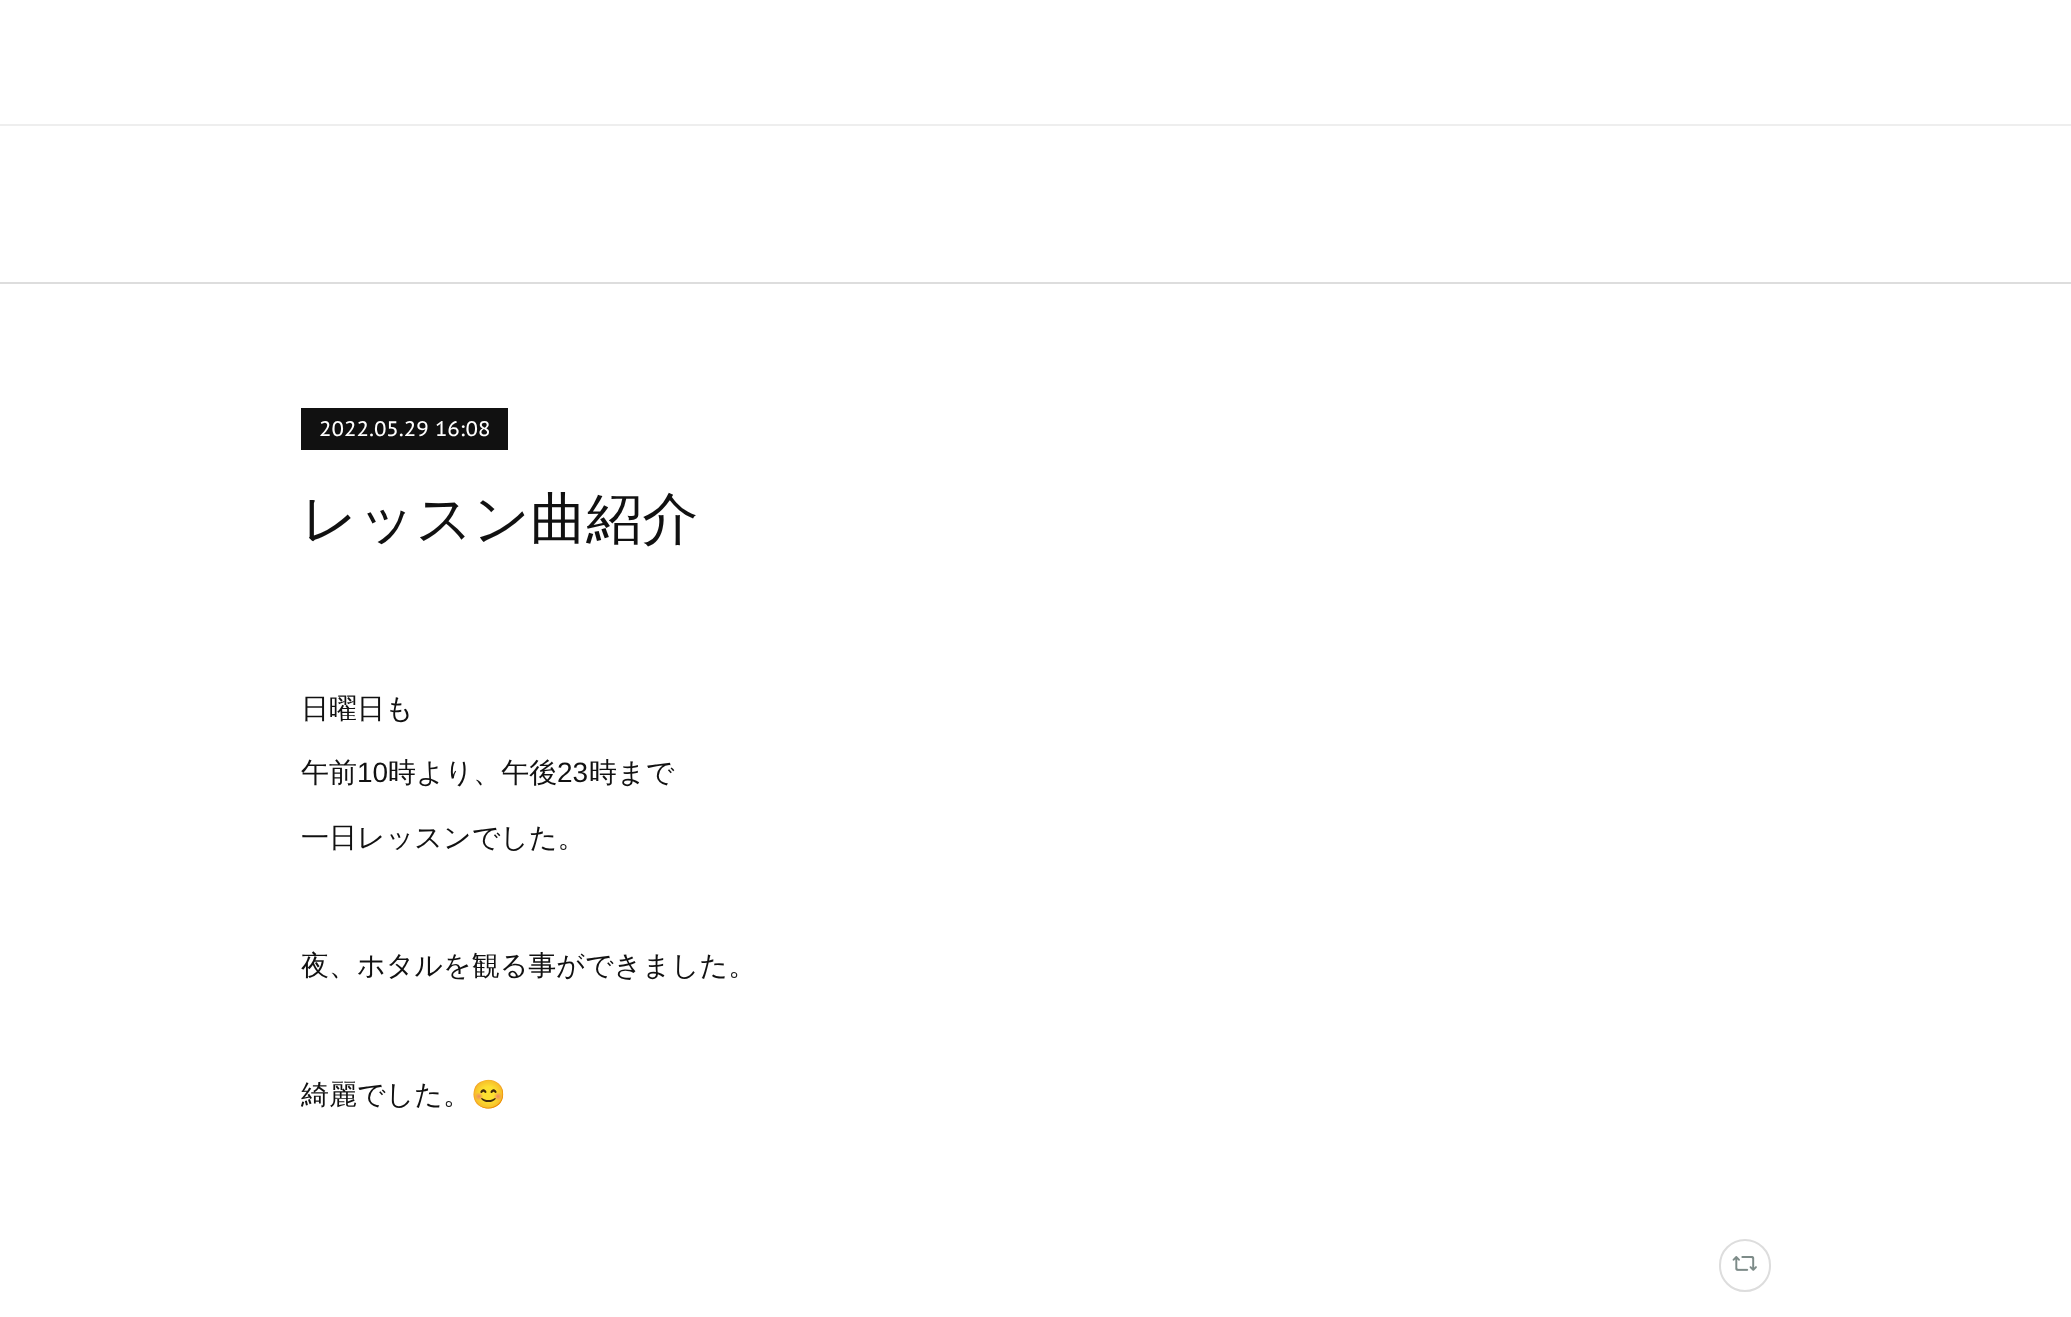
<?xml version="1.0" encoding="UTF-8"?>
<svg xmlns="http://www.w3.org/2000/svg" width="2071" height="1317">
    <rect width="100%" height="100%" fill="#FFFFFF"/>
    <rect x="0" y="124" width="2071" height="2" fill="#EEEEEE"/>
    <rect x="0" y="282" width="2071" height="2" fill="#DDDDDD"/>
    <rect x="301" y="408" width="207" height="42" fill="#111111"/>
    <text x="319" y="436" font-family="PT Sans Caption" font-size="21" fill="#FFFFFF">2022.05.29 16:08</text>
    <text x="301" y="538" font-family="WenQuanYi Zen Hei" font-size="56" font-weight="500" fill="#111111">レッスン曲紹介</text>
    <text x="301" y="718" font-family="WenQuanYi Zen Hei" font-size="28" font-weight="500" fill="#111111">日曜日も</text>
    <text x="301" y="782" font-family="WenQuanYi Zen Hei" font-size="28" font-weight="500" fill="#111111">午前</text>
    <text x="357" y="782" font-family="Liberation Sans" font-size="28" fill="#111111">10</text>
    <text x="388" y="782" font-family="WenQuanYi Zen Hei" font-size="28" font-weight="500" fill="#111111">時より、午後</text>
    <text x="557" y="782" font-family="Liberation Sans" font-size="28" fill="#111111">23</text>
    <text x="589" y="782" font-family="WenQuanYi Zen Hei" font-size="28" font-weight="500" fill="#111111">時まで</text>
    <text x="301" y="847" font-family="WenQuanYi Zen Hei" font-size="28" font-weight="500" fill="#111111">一日レッスンでした。</text>
    <text x="301" y="975" font-family="WenQuanYi Zen Hei" font-size="28" font-weight="500" fill="#111111">夜、ホタルを観る事ができました。</text>
    <text x="301" y="1104" font-family="WenQuanYi Zen Hei" font-size="28" font-weight="500" fill="#111111">綺麗でした。</text>
    <text x="471" y="1104" font-family="Noto Color Emoji" font-size="28" fill="#111111">😊</text>
    <rect x="1720" y="1240" width="50" height="51" rx="25" fill="none" stroke="#DDDDDD" stroke-width="2"/>
    <image x="1732" y="1256" width="25" height="15" href="img_01.png"/>
</svg>
